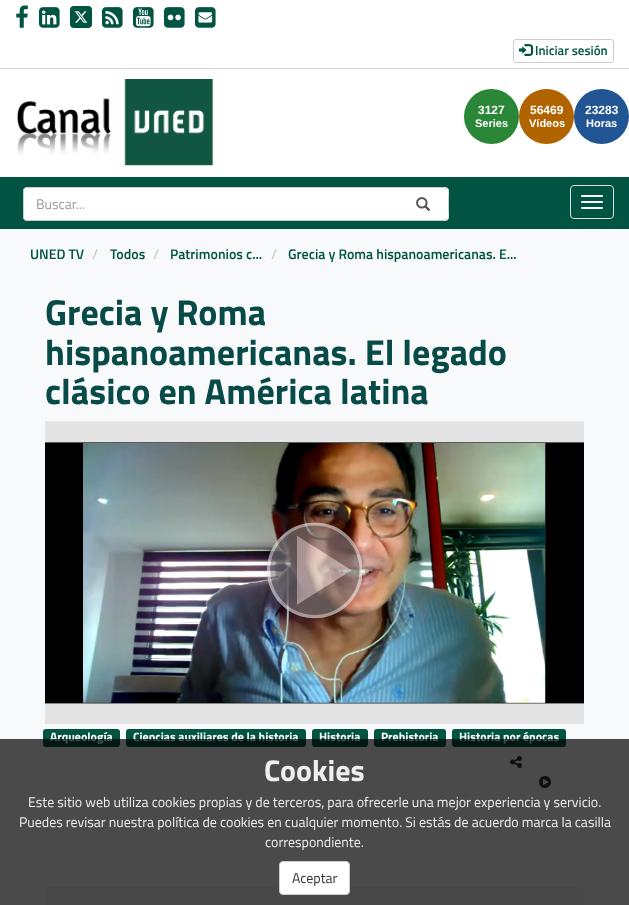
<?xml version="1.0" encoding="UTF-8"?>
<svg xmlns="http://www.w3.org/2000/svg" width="629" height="905">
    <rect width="100%" height="100%" fill="#FFFFFF"/>
    <rect x="0" y="68" width="629" height="1" fill="#D3D3D3"/>
    <image x="16" y="5" width="12" height="23" href="img_01.png"/>
    <image x="39" y="7" width="21" height="21" href="img_02.png"/>
    <rect x="70" y="6" width="22" height="22" rx="4" fill="#015442"/>
    <image x="102" y="7" width="21" height="21" href="img_03.png"/>
    <image x="133" y="7" width="21" height="21" href="img_04.png"/>
    <image x="164" y="7" width="21" height="21" href="img_05.png"/>
    <image x="195" y="7" width="21" height="21" href="img_06.png"/>
    <image x="74" y="11" width="14" height="12" href="img_07.png"/>
    <rect x="513.5" y="39.5" width="100" height="23" rx="2.5" fill="none" stroke="#CCCCCC"/>
    <image x="519" y="44" width="15" height="12" href="img_08.png"/>
    <text x="535" y="55" font-family="Titillium Web" font-size="13" font-weight="600" fill="#015442">Iniciar sesión</text>
    <image x="17" y="79" width="197" height="87" href="img_09.png"/>
    <circle cx="491.5" cy="116.5" r="27.5" fill="#2A8737"/>
    <text x="478" y="114" font-family="Liberation Sans" font-size="12" font-weight="700" fill="#FFFFFF">3127</text>
    <text x="475" y="127" font-family="Liberation Sans" font-size="11" font-weight="700" fill="#FFFFFF">Series</text>
    <circle cx="546.5" cy="116.5" r="27.5" fill="#B16300"/>
    <text x="530" y="114" font-family="Liberation Sans" font-size="12" font-weight="700" fill="#FFFFFF">56469</text>
    <text x="529" y="127" font-family="Liberation Sans" font-size="11" font-weight="700" fill="#FFFFFF">Vídeos</text>
    <circle cx="601.5" cy="116.5" r="27.5" fill="#225594"/>
    <text x="585" y="114" font-family="Liberation Sans" font-size="12" font-weight="700" fill="#FFFFFF">23283</text>
    <text x="586" y="127" font-family="Liberation Sans" font-size="11" font-weight="700" fill="#FFFFFF">Horas</text>
    <rect x="0" y="177" width="629" height="52" fill="#015442"/>
    <path d="M 27 187 H 398 V 221 H 27 C 25 221 23 219 23 217 V 191 C 23 189 25 187 27 187 Z" fill="#FFFFFF"/>
    <path d="M 27 187 H 398 V 221 H 27 C 25 221 23 219 23 217 V 191 C 23 189 25 187 27 187 Z M 27 188 H 398 V 220 H 27 C 25 220 24 219 24 217 V 191 C 24 189 25 188 27 188 Z" fill="#CCCCCC" fill-rule="evenodd"/>
    <text x="36" y="209" font-family="Titillium Web" font-size="14" fill="#999999">Buscar...</text>
    <path d="M 398 187 H 445 C 447 187 449 189 449 191 V 217 C 449 219 447 221 445 221 H 398 Z" fill="#FFFFFF"/>
    <path d="M 398 187 H 445 C 447 187 449 189 449 191 V 217 C 449 219 447 221 445 221 H 398 Z M 398 188 H 437 C 452 188 448 188 448 204 C 448 220 452 220 437 220 H 398 Z" fill="#CCCCCC" fill-rule="evenodd"/>
    <image x="416" y="197" width="15" height="14" href="img_10.png"/>
    <rect x="570.5" y="185.5" width="43" height="33" rx="3.5" fill="none" stroke="#DDDDDD"/>
    <rect x="581" y="195" width="22" height="2" rx="1" fill="#FFFFFF"/>
    <rect x="581" y="201" width="22" height="2" rx="1" fill="#FFFFFF"/>
    <rect x="581" y="207" width="22" height="2" rx="1" fill="#FFFFFF"/>
    <rect x="0" y="229" width="629" height="676" fill="#F8F9FA"/>
    <text x="30" y="259" font-family="Titillium Web" font-size="14" font-weight="600" fill="#015442">UNED TV</text>
    <text x="92" y="259" font-family="Titillium Web" font-size="14" font-weight="600" fill="#CCCCCC">/</text>
    <text x="110" y="259" font-family="Titillium Web" font-size="14" font-weight="600" fill="#015442">Todos</text>
    <text x="153" y="259" font-family="Titillium Web" font-size="14" font-weight="600" fill="#CCCCCC">/</text>
    <text x="170" y="259" font-family="Titillium Web" font-size="14" font-weight="600" fill="#015442">Patrimonios c...</text>
    <text x="271" y="259" font-family="Titillium Web" font-size="14" font-weight="600" fill="#CCCCCC">/</text>
    <text x="288" y="259" font-family="Titillium Web" font-size="14" font-weight="600" fill="#015442">Grecia y Roma hispanoamericanas. E...</text>
    <text font-family="Titillium Web" font-size="36" font-weight="700" fill="#084A48">
        <tspan x="45" y="325">Grecia y Roma</tspan>
        <tspan x="45" y="365">hispanoamericanas. El legado</tspan>
        <tspan x="45" y="404">clásico en América latina</tspan>
    </text>
    <image x="45" y="421" width="539" height="303" href="img_11.png"/>
    <rect x="43" y="729" width="77" height="18" rx="3" fill="#015442"/>
    <text x="50" y="741" font-family="Titillium Web" font-size="12" font-weight="700" fill="#FFFFFF">Arqueología</text>
    <rect x="126" y="729" width="180" height="18" rx="3" fill="#015442"/>
    <text x="133" y="741" font-family="Titillium Web" font-size="12" font-weight="700" fill="#FFFFFF">Ciencias auxiliares de la historia</text>
    <rect x="312" y="729" width="56" height="18" rx="3" fill="#015442"/>
    <text x="319" y="741" font-family="Titillium Web" font-size="12" font-weight="700" fill="#FFFFFF">Historia</text>
    <rect x="374" y="729" width="72" height="18" rx="3" fill="#015442"/>
    <text x="381" y="741" font-family="Titillium Web" font-size="12" font-weight="700" fill="#FFFFFF">Prehistoria</text>
    <rect x="452" y="729" width="114" height="18" rx="3" fill="#015442"/>
    <text x="459" y="741" font-family="Titillium Web" font-size="12" font-weight="700" fill="#FFFFFF">Historia por épocas</text>
    <image x="510" y="756" width="12" height="12" href="img_12.png"/>
    <image x="539" y="776" width="12" height="12" href="img_13.png"/>
    <rect x="45.5" y="887.5" width="538" height="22" rx="3.5" fill="none" stroke="#EDEDED"/>
    <path d="M 49 888 H 580 C 581.5 888 583 889.5 583 891 V 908 H 46 V 891 C 46 889.5 47.5 888 49 888 Z" fill="#EDEDED"/>
    <rect x="0" y="739" width="629" height="166" fill="#000000" fill-opacity="0.7"/>
    <text x="264" y="781" font-family="Titillium Web" font-size="30" font-weight="700" fill="#EFEFEF">Cookies</text>
    <text x="28" y="807" font-family="Titillium Web" font-size="14" fill="#EFEFEF">Este sitio web utiliza cookies propias y de terceros, para ofrecerle una mejor experiencia y servicio.</text>
    <text x="19" y="827" font-family="Titillium Web" font-size="14" fill="#EFEFEF">Puedes revisar nuestra política de cookies en cualquier momento. Si estás de acuerdo marca la casilla</text>
    <text x="265" y="847" font-family="Titillium Web" font-size="14" fill="#EFEFEF">correspondiente.</text>
    <rect x="279.5" y="861.5" width="70" height="33" rx="3.5" fill="#FFFFFF" stroke="#CCCCCC"/>
    <text x="292" y="883" font-family="Titillium Web" font-size="14" fill="#333333">Aceptar</text>
</svg>
